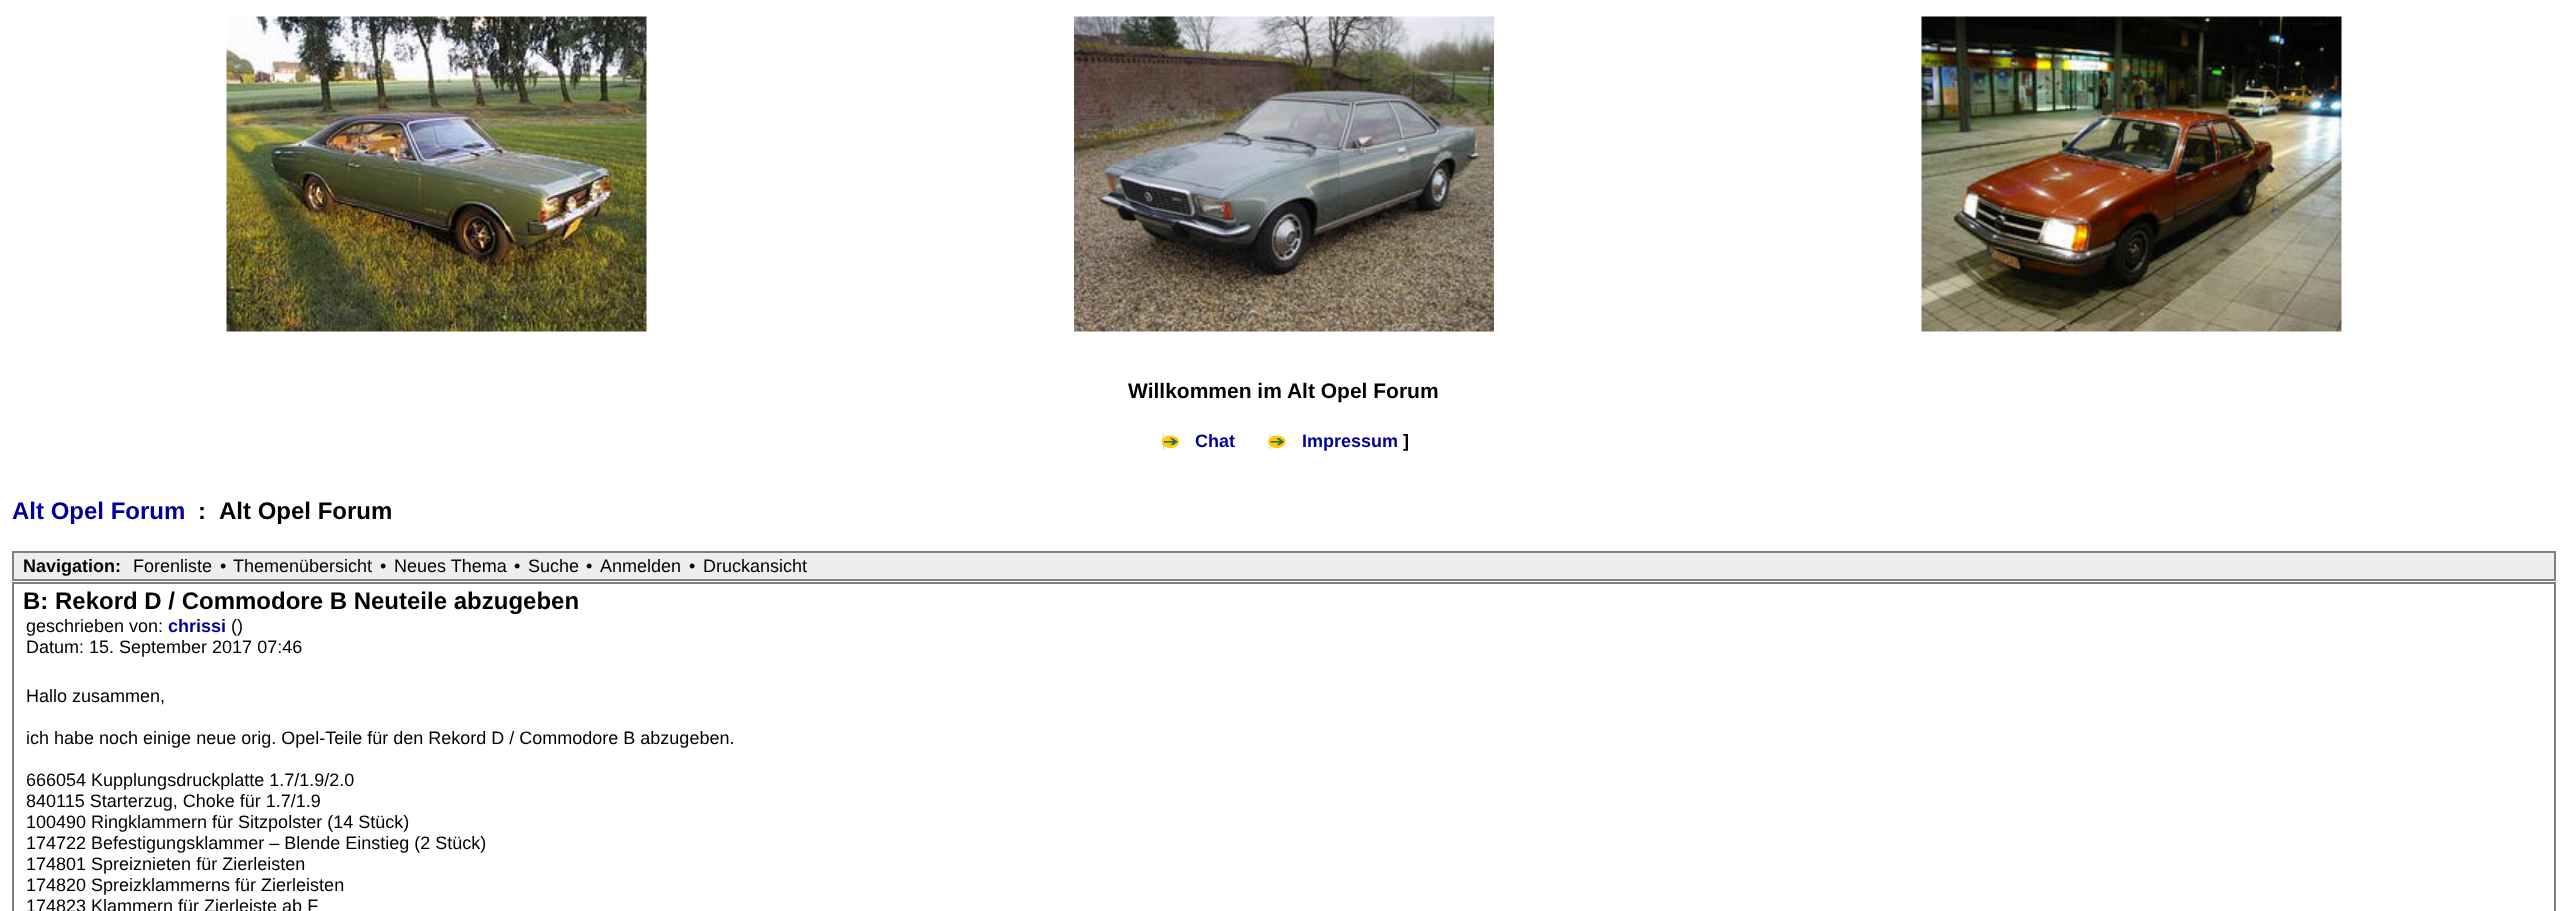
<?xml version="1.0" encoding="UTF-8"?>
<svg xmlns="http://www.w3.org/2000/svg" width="2568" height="911">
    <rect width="100%" height="100%" fill="#FFFFFF"/>
    <image x="226" y="16" width="421" height="316" href="img_01.png"/>
    <image x="1074" y="16" width="420" height="316" href="img_02.png"/>
    <image x="1921" y="16" width="421" height="316" href="img_03.png"/>
    <text x="1128" y="398" font-family="Liberation Sans" font-size="21" font-weight="700" fill="#000000">Willkommen im Alt Opel Forum</text>
    <image x="1161" y="433" width="18" height="17" href="img_04.png"/>
    <text x="1195" y="447" font-family="Liberation Sans" font-size="18" font-weight="700" fill="#000099">Chat</text>
    <image x="1268" y="433" width="18" height="17" href="img_05.png"/>
    <text x="1302" y="447" font-family="Liberation Sans" font-size="18" font-weight="700" fill="#000099">Impressum</text>
    <text x="1403" y="447" font-family="Liberation Sans" font-size="18" font-weight="700" fill="#000000">]</text>
    <text x="12" y="519" font-family="Liberation Sans" font-size="24" font-weight="700" fill="#000099">Alt Opel Forum</text>
    <text x="198" y="519" font-family="Liberation Sans" font-size="24" font-weight="700" fill="#000000">:</text>
    <text x="219" y="519" font-family="Liberation Sans" font-size="24" font-weight="700" fill="#000000">Alt Opel Forum</text>
    <rect x="13" y="552" width="2542" height="28" fill="#EEEEEE" stroke="#808080" stroke-width="2"/>
    <text x="23" y="572" font-family="Liberation Sans" font-size="18" font-weight="700" fill="#000000">Navigation:</text>
    <text x="133" y="572" font-family="Liberation Sans" font-size="18" fill="#000000">Forenliste</text>
    <text x="220" y="572" font-family="Liberation Sans" font-size="18" fill="#000000">•</text>
    <text x="233" y="572" font-family="Liberation Sans" font-size="18" fill="#000000">Themenübersicht</text>
    <text x="380" y="572" font-family="Liberation Sans" font-size="18" fill="#000000">•</text>
    <text x="394" y="572" font-family="Liberation Sans" font-size="18" fill="#000000">Neues Thema</text>
    <text x="514" y="572" font-family="Liberation Sans" font-size="18" fill="#000000">•</text>
    <text x="528" y="572" font-family="Liberation Sans" font-size="18" fill="#000000">Suche</text>
    <text x="586" y="572" font-family="Liberation Sans" font-size="18" fill="#000000">•</text>
    <text x="600" y="572" font-family="Liberation Sans" font-size="18" fill="#000000">Anmelden</text>
    <text x="689" y="572" font-family="Liberation Sans" font-size="18" fill="#000000">•</text>
    <text x="703" y="572" font-family="Liberation Sans" font-size="18" fill="#000000">Druckansicht</text>
    <rect x="13" y="583" width="2542" height="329" fill="none" stroke="#808080" stroke-width="2"/>
    <text x="23" y="609" font-family="Liberation Sans" font-size="24" font-weight="700" fill="#000000">B: Rekord D / Commodore B Neuteile abzugeben</text>
    <text x="26" y="632" font-family="Liberation Sans" font-size="18" fill="#000000">geschrieben von:</text>
    <text x="168" y="632" font-family="Liberation Sans" font-size="18" font-weight="700" fill="#000099">chrissi</text>
    <text x="231" y="632" font-family="Liberation Sans" font-size="18" fill="#000000">()</text>
    <text x="26" y="653" font-family="Liberation Sans" font-size="18" fill="#000000">Datum: 15. September 2017 07:46</text>
    <text x="26" y="702" font-family="Liberation Sans" font-size="18" fill="#000000">Hallo zusammen,</text>
    <text x="26" y="744" font-family="Liberation Sans" font-size="18" fill="#000000">ich habe noch einige neue orig. Opel-Teile für den Rekord D / Commodore B abzugeben.</text>
    <text font-family="Liberation Sans" font-size="18" fill="#000000">
        <tspan x="26" y="786">666054 Kupplungsdruckplatte 1.7/1.9/2.0</tspan>
        <tspan x="26" y="807">840115 Starterzug, Choke für 1.7/1.9</tspan>
        <tspan x="26" y="828">100490 Ringklammern für Sitzpolster (14 Stück)</tspan>
        <tspan x="26" y="849">174722 Befestigungsklammer – Blende Einstieg (2 Stück)</tspan>
        <tspan x="26" y="870">174801 Spreiznieten für Zierleisten</tspan>
        <tspan x="26" y="891">174820 Spreizklammerns für Zierleisten</tspan>
        <tspan x="26" y="912">174823 Klammern für Zierleiste ab F</tspan>
    </text>
</svg>
